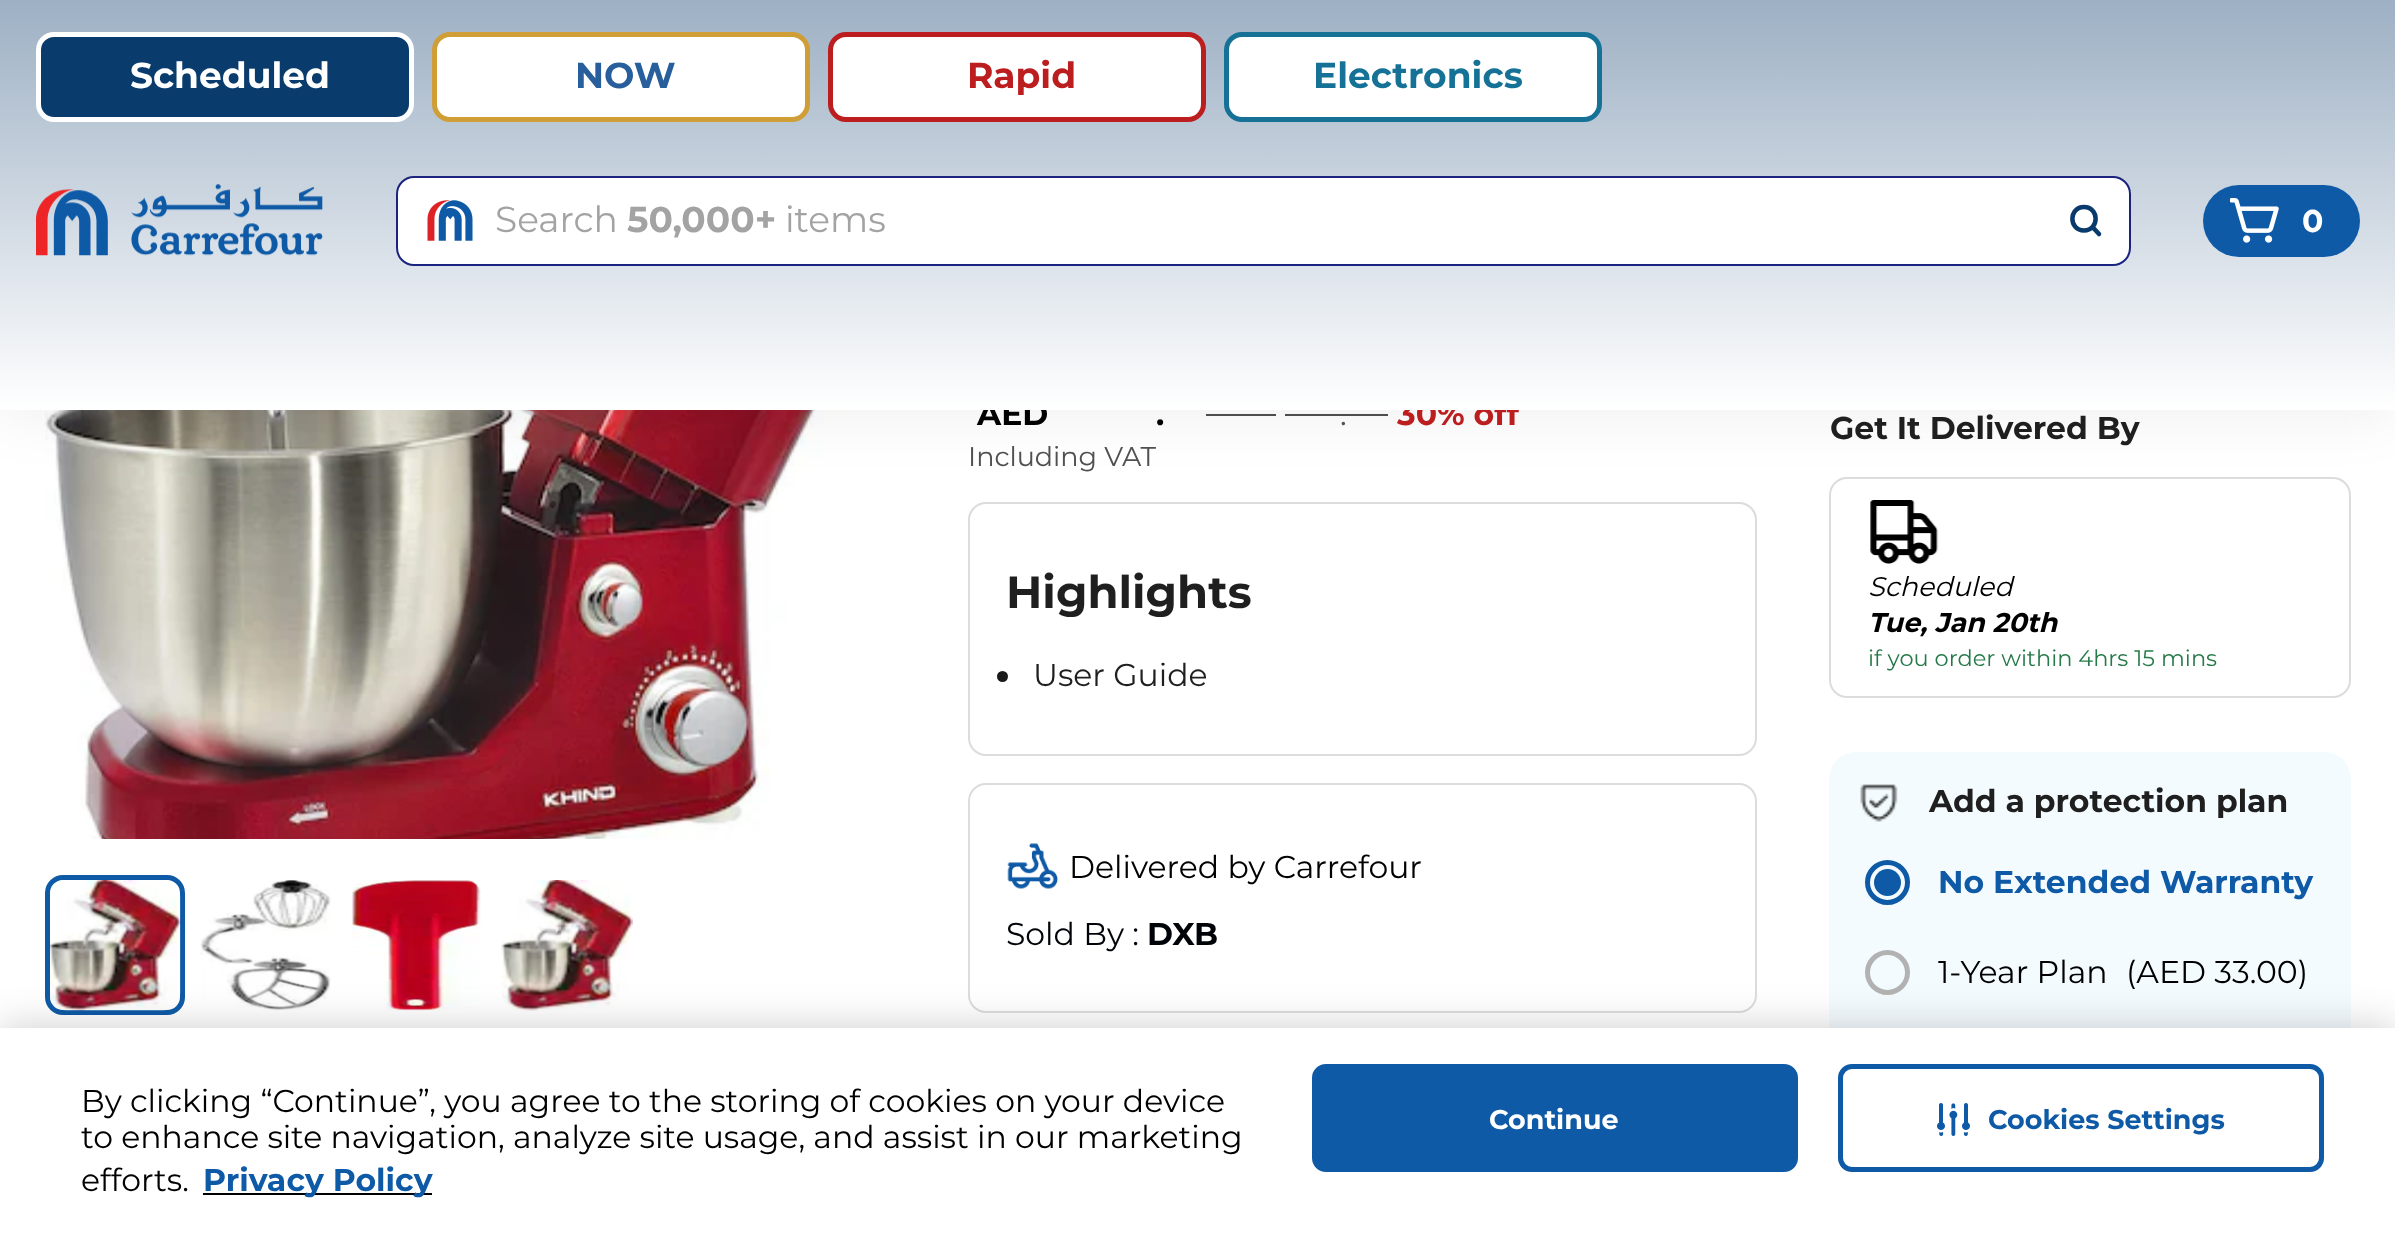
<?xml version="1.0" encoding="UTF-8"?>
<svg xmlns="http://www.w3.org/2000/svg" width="2395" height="1257">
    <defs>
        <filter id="blur1" x="-50%" y="-200%" width="200%" height="500%"><feGaussianBlur stdDeviation="27"/></filter>
        <linearGradient id="g1" gradientUnits="userSpaceOnUse" x1="1198" y1="0" x2="1198" y2="410"><stop offset="0" stop-color="#9DB0C4"/><stop offset="1" stop-color="#FFFFFF"/></linearGradient>
        <filter id="blur2" x="-50%" y="-200%" width="200%" height="500%"><feGaussianBlur stdDeviation="20"/></filter>
    </defs>
    <rect width="100%" height="100%" fill="#FFFFFF"/>
    <image x="45" y="410" width="851" height="429" href="img_04.png"/>
    <rect x="1206" y="414" width="70" height="2" fill="#505050"/>
    <rect x="1285" y="414" width="103" height="2" fill="#505050"/>
    <rect x="1830" y="478" width="520" height="219" rx="17" fill="none" stroke="#DCDCDC" stroke-width="2"/>
    <image x="1870" y="500" width="69" height="64" href="img_10.png"/>
    <rect x="0" y="9" width="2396" height="410" fill="#000000" fill-opacity="0.06" filter="url(#blur1)"/>
    <text x="977" y="425" font-family="Montserrat" font-size="31.5" font-weight="700" fill="#000000">AED</text>
    <text x="1397" y="425" font-family="Montserrat" font-size="31.5" font-weight="700" fill="#BC1E20">30% off</text>
    <rect x="0" y="0" width="2395" height="410" fill="url(#g1)"/>
    <rect x="38.5" y="34.5" width="373" height="85" rx="15.5" fill="#093B6C" stroke="#FFFFFF" stroke-width="5"/>
    <text x="130" y="88" font-family="Montserrat" font-size="36" font-weight="700" fill="#FFFFFF">Scheduled</text>
    <rect x="434.5" y="34.5" width="373" height="85" rx="15.5" fill="#FFFFFF" stroke="#CF9E36" stroke-width="5"/>
    <text x="575" y="88" font-family="Montserrat" font-size="36" font-weight="700" fill="#285E9C">NOW</text>
    <rect x="830.5" y="34.5" width="373" height="85" rx="15.5" fill="#FFFFFF" stroke="#BC1E20" stroke-width="5"/>
    <text x="967" y="88" font-family="Montserrat" font-size="36" font-weight="700" fill="#BC1E20">Rapid</text>
    <rect x="1226.5" y="34.5" width="373" height="85" rx="15.5" fill="#FFFFFF" stroke="#157296" stroke-width="5"/>
    <text x="1313" y="88" font-family="Montserrat" font-size="36" font-weight="700" fill="#157296">Electronics</text>
    <image x="36" y="184" width="287" height="72" href="img_01.png"/>
    <rect x="397" y="177" width="1733" height="88" rx="17" fill="#FFFFFF" stroke="#1A237E" stroke-width="2"/>
    <image x="427" y="200" width="46" height="41" href="img_02.png"/>
    <text x="495" y="232" font-family="Montserrat" font-size="36" fill="#A3A3A3">Search</text>
    <text x="627" y="232" font-family="Montserrat" font-size="36" font-weight="700" fill="#A3A3A3">50,000+</text>
    <text x="785" y="232" font-family="Montserrat" font-size="36" fill="#A3A3A3">items</text>
    <path d="M 2084 230.5 C 2099.5 230.5 2099.5 207 2084 207 C 2068.5 207 2068.5 230.5 2084 230.5 Z M 2092.5 227 L 2099 234" fill="none" stroke="#093A6C" stroke-width="4.5" stroke-linecap="round" stroke-linejoin="round"/>
    <rect x="2203" y="185" width="157" height="72" rx="36" fill="#0E5AA7"/>
    <image x="2230" y="198" width="49" height="45" href="img_03.png"/>
    <text x="2302" y="232" font-family="Montserrat" font-size="31.5" font-weight="700" fill="#FFFFFF">0</text>
    <rect x="47.5" y="877.5" width="135" height="135" rx="15.5" fill="none" stroke="#0E5AA7" stroke-width="5"/>
    <image x="50" y="880" width="131" height="131" href="img_05.png"/>
    <image x="200" y="880" width="131" height="130" href="img_06.png"/>
    <image x="351" y="880" width="130" height="131" href="img_07.png"/>
    <image x="501" y="880" width="132" height="131" href="img_08.png"/>
    <text x="1156" y="425" font-family="Montserrat" font-size="31.5" font-weight="700" fill="#000000">.</text>
    <text x="1340" y="425" font-family="Montserrat" font-size="31.5" fill="#505050">.</text>
    <text x="968" y="466" font-family="Montserrat" font-size="27" fill="#505050">Including VAT</text>
    <rect x="969" y="503" width="787" height="252" rx="17" fill="none" stroke="#DCDCDC" stroke-width="2"/>
    <text x="1006" y="608" font-family="Montserrat" font-size="45" font-weight="700" fill="#1F1F1F">Highlights</text>
    <circle cx="1002.5" cy="676.5" r="5.5" fill="#1A1A1A"/>
    <text x="1033" y="686" font-family="Montserrat" font-size="31.5" fill="#1F1F1F">User Guide</text>
    <rect x="969" y="784" width="787" height="228" rx="17" fill="none" stroke="#DCDCDC" stroke-width="2"/>
    <image x="1007" y="843" width="51" height="46" href="img_09.png"/>
    <text x="1069" y="878" font-family="Montserrat" font-size="31.5" fill="#000000">Delivered by Carrefour</text>
    <text x="1006" y="945" font-family="Montserrat" font-size="31.5" fill="#000408">Sold By :</text>
    <text x="1147" y="945" font-family="Montserrat" font-size="31.5" font-weight="700" fill="#000408">DXB</text>
    <text x="1830" y="439" font-family="Montserrat" font-size="31.5" font-weight="700" fill="#1F1F1F">Get It Delivered By</text>
    <text x="1868" y="596" font-family="Montserrat" font-size="27" font-style="italic" fill="#000000">Scheduled</text>
    <text x="1868" y="632" font-family="Montserrat" font-size="27" font-weight="700" font-style="italic" fill="#000000">Tue, Jan 20th</text>
    <text x="1868" y="666" font-family="Montserrat" font-size="22.5" fill="#267949">if you order within 4hrs 15 mins</text>
    <rect x="1829" y="752" width="522" height="396" rx="27" fill="#F4FBFE"/>
    <image x="1860" y="784" width="38" height="38" href="img_11.png"/>
    <text x="1929" y="812" font-family="Montserrat" font-size="31.5" font-weight="700" fill="#1F1F1F">Add a protection plan</text>
    <circle cx="1887.5" cy="882.5" r="20" fill="none" stroke="#0E5AA7" stroke-width="5"/>
    <circle cx="1887.5" cy="882.5" r="13.5" fill="#0E5AA7"/>
    <text x="1938" y="893" font-family="Montserrat" font-size="31.5" font-weight="700" fill="#0E5AA7">No Extended Warranty</text>
    <circle cx="1887.5" cy="972.5" r="20" fill="none" stroke="#B2B2B2" stroke-width="5"/>
    <text x="1938" y="983" font-family="Montserrat" font-size="31.5" fill="#000000">1-Year Plan</text>
    <text x="2126" y="983" font-family="Montserrat" font-size="31.5" fill="#000000">(AED 33.00)</text>
    <rect x="0" y="1028" width="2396" height="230" fill="#000000" fill-opacity="0.2" filter="url(#blur2)"/>
    <rect x="0" y="1028" width="2395" height="229" fill="#FFFFFF"/>
    <text font-family="Montserrat" font-size="31.5" fill="#000000">
        <tspan x="81" y="1112">By clicking “Continue”, you agree to the storing of cookies on your device</tspan>
        <tspan x="81" y="1148">to enhance site navigation, analyze site usage, and assist in our marketing</tspan>
        <tspan x="81" y="1191">efforts.</tspan>
    </text>
    <rect x="203" y="1193" width="229" height="2" fill="#000000"/>
    <text x="203" y="1191" font-family="Montserrat" font-size="31.5" font-weight="700" fill="#0E5AA7">Privacy Policy</text>
    <rect x="1314.5" y="1066.5" width="481" height="103" rx="11.5" fill="#0E5AA7" stroke="#0E5AA7" stroke-width="5"/>
    <text x="1489" y="1129" font-family="Montserrat" font-size="27" font-weight="700" fill="#FFFFFF">Continue</text>
    <rect x="1840.5" y="1066.5" width="481" height="103" rx="11.5" fill="none" stroke="#0E5AA7" stroke-width="5"/>
    <image x="1937" y="1103" width="33" height="33" href="img_12.png"/>
    <text x="1988" y="1129" font-family="Montserrat" font-size="27" font-weight="700" fill="#0E5AA7">Cookies Settings</text>
</svg>
